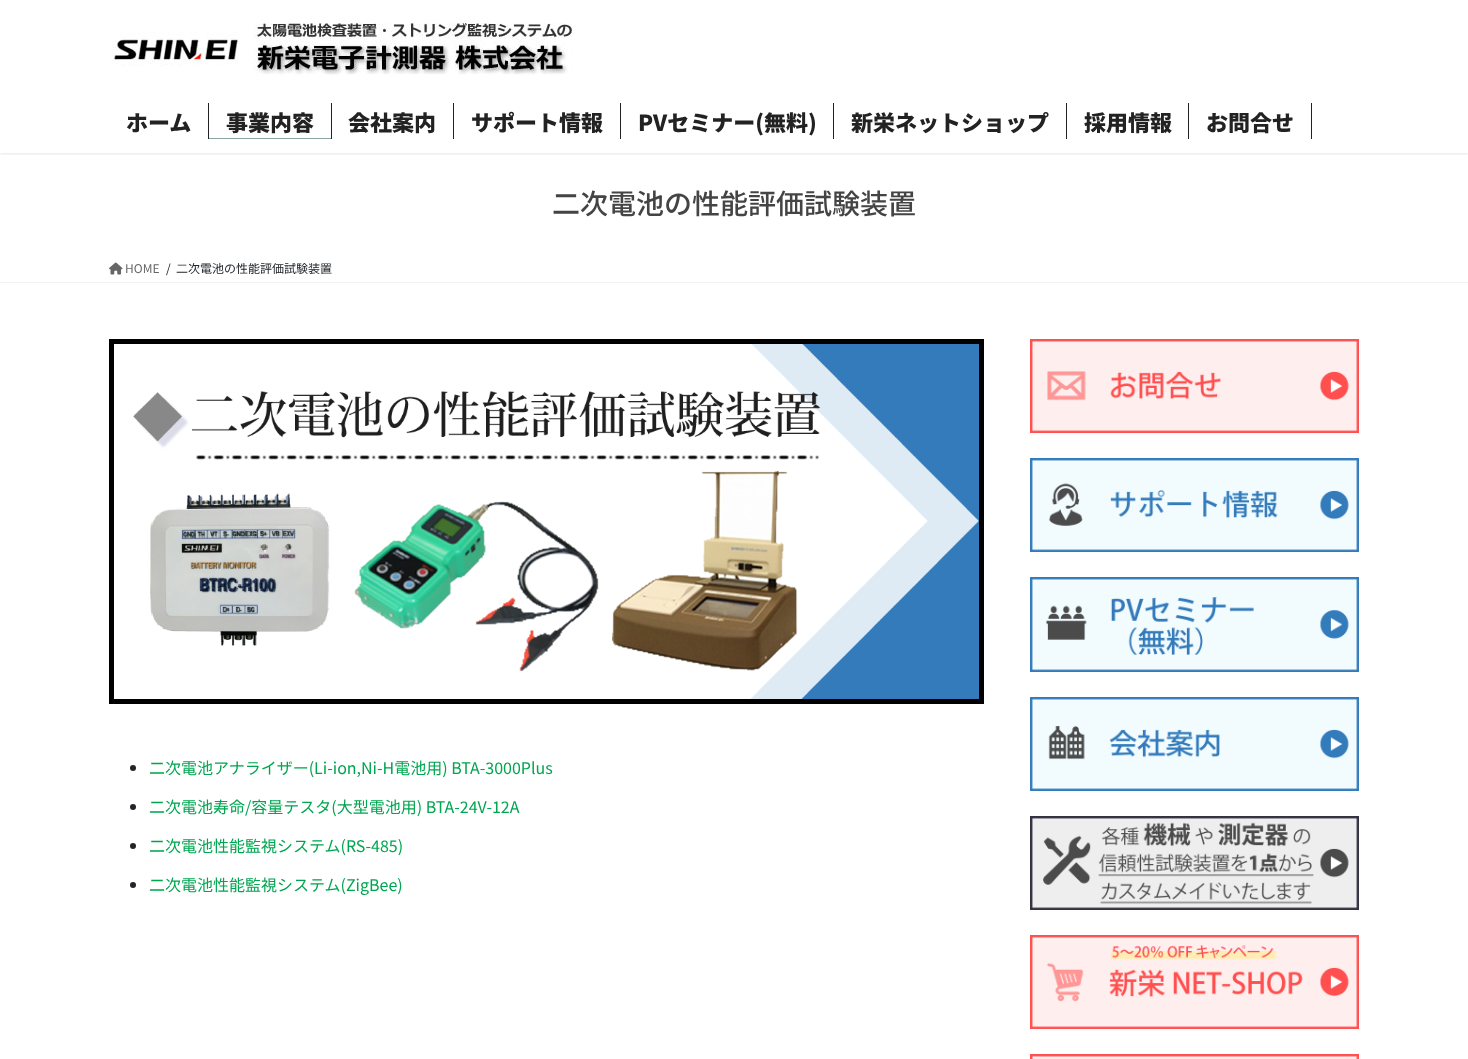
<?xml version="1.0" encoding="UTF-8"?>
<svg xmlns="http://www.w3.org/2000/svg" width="1468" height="1059">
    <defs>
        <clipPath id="clip1"><rect x="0" y="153" width="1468" height="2"/></clipPath>
        <filter id="blur1" x="-50%" y="-200%" width="200%" height="500%"><feGaussianBlur stdDeviation="1.5"/></filter>
    </defs>
    <rect width="100%" height="100%" fill="#FFFFFF"/>
    <g clip-path="url(#clip1)">
        <rect x="0" y="1" width="1468" height="153" fill="#000000" fill-opacity="0.1" filter="url(#blur1)"/>
    </g>
    <image x="111" y="23" width="462" height="52" href="img_01.png"/>
    <rect x="208" y="103" width="1" height="36" fill="#222222"/>
    <text x="126" y="131" font-family="Noto Sans JP" font-size="22" font-weight="900" fill="#222222">ホーム</text>
    <rect x="331" y="103" width="1" height="36" fill="#222222"/>
    <text x="226" y="131" font-family="Noto Sans JP" font-size="22" font-weight="900" fill="#222222">事業内容</text>
    <rect x="209" y="138" width="122" height="1" fill="#8BA5A5"/>
    <rect x="453" y="103" width="1" height="36" fill="#222222"/>
    <text x="348" y="131" font-family="Noto Sans JP" font-size="22" font-weight="900" fill="#222222">会社案内</text>
    <rect x="620" y="103" width="1" height="36" fill="#222222"/>
    <text x="471" y="131" font-family="Noto Sans JP" font-size="22" font-weight="900" fill="#222222">サポート情報</text>
    <rect x="833" y="103" width="1" height="36" fill="#222222"/>
    <text x="638" y="131" font-family="Noto Sans JP" font-size="22" font-weight="900" fill="#222222">PVセミナー(無料)</text>
    <rect x="1066" y="103" width="1" height="36" fill="#222222"/>
    <text x="851" y="131" font-family="Noto Sans JP" font-size="22" font-weight="900" fill="#222222">新栄ネットショップ</text>
    <rect x="1188" y="103" width="1" height="36" fill="#222222"/>
    <text x="1084" y="131" font-family="Noto Sans JP" font-size="22" font-weight="900" fill="#222222">採用情報</text>
    <rect x="1311" y="103" width="1" height="36" fill="#222222"/>
    <text x="1206" y="131" font-family="Noto Sans JP" font-size="22" font-weight="900" fill="#222222">お問合せ</text>
    <text x="552" y="214" font-family="Noto Sans JP" font-size="28" font-weight="500" fill="#444444">二次電池の性能評価試験装置</text>
    <rect x="0" y="282" width="1468" height="1" fill="#F2F2F2"/>
    <image x="109" y="262" width="14" height="13" href="img_02.png"/>
    <text x="125" y="273" font-family="Noto Sans JP" font-size="12" fill="#666666">HOME</text>
    <text x="166" y="273" font-family="Noto Sans JP" font-size="12" fill="#212529">/</text>
    <text x="176" y="273" font-family="Noto Sans JP" font-size="12" fill="#212529">二次電池の性能評価試験装置</text>
    <image x="109" y="339" width="875" height="365" href="img_03.png"/>
    <circle cx="133" cy="768" r="3" fill="#212529"/>
    <text x="149" y="774" font-family="Noto Sans JP" font-size="16" fill="#00A550">二次電池アナライザー(Li-ion,Ni-H電池用) BTA-3000Plus</text>
    <circle cx="133" cy="807" r="3" fill="#212529"/>
    <text x="149" y="813" font-family="Noto Sans JP" font-size="16" fill="#00A550">二次電池寿命/容量テスタ(大型電池用) BTA-24V-12A</text>
    <circle cx="133" cy="846" r="3" fill="#212529"/>
    <text x="149" y="852" font-family="Noto Sans JP" font-size="16" fill="#00A550">二次電池性能監視システム(RS-485)</text>
    <circle cx="133" cy="885" r="3" fill="#212529"/>
    <text x="149" y="891" font-family="Noto Sans JP" font-size="16" fill="#00A550">二次電池性能監視システム(ZigBee)</text>
    <image x="1030" y="339" width="329" height="94" href="img_04.png"/>
    <image x="1030" y="458" width="329" height="94" href="img_05.png"/>
    <image x="1030" y="577" width="329" height="95" href="img_06.png"/>
    <image x="1030" y="697" width="329" height="94" href="img_07.png"/>
    <image x="1030" y="816" width="329" height="94" href="img_08.png"/>
    <image x="1030" y="935" width="329" height="94" href="img_09.png"/>
    <image x="1030" y="1054" width="329" height="5" href="img_10.png"/>
</svg>
